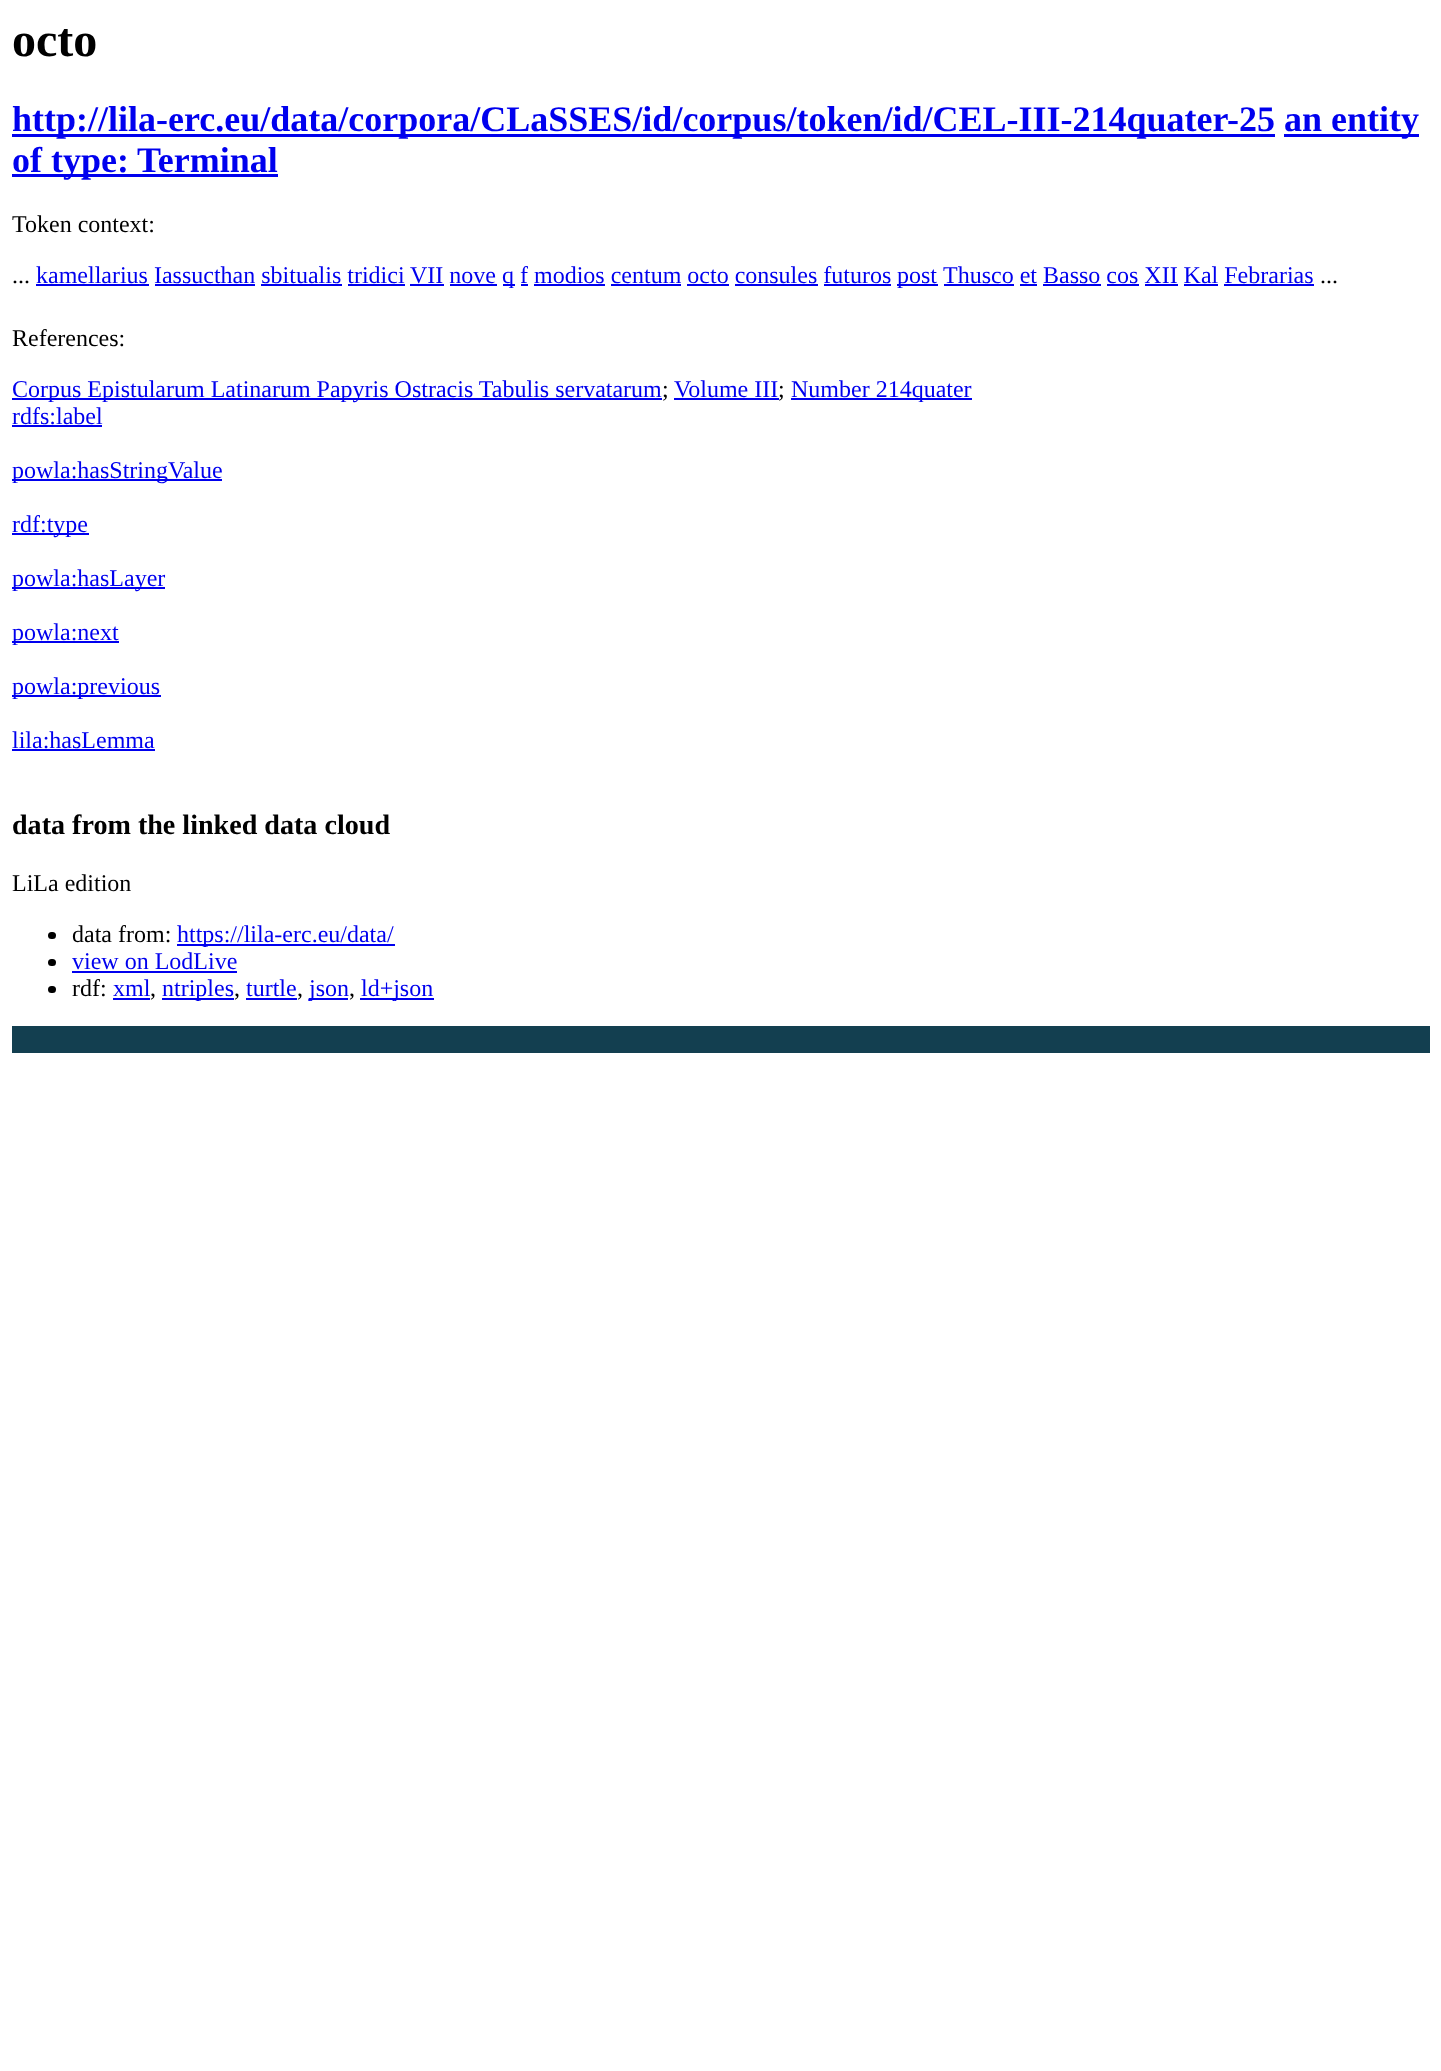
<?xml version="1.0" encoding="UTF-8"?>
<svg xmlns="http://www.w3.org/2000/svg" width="1441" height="2071">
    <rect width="100%" height="100%" fill="#FFFFFF"/>
    <text x="12" y="56" font-family="Liberation Serif" font-size="48" font-weight="700" fill="#000000">octo</text>
    <rect x="12" y="134" width="1263" height="3" fill="#0000EE"/>
    <text x="12" y="131" font-family="Liberation Serif" font-size="36" font-weight="700" fill="#0000EE">http://lila-erc.eu/data/corpora/CLaSSES/id/corpus/token/id/CEL-III-214quater-25</text>
    <rect x="1284" y="134" width="135" height="3" fill="#0000EE"/>
    <text x="1284" y="131" font-family="Liberation Serif" font-size="36" font-weight="700" fill="#0000EE">an entity</text>
    <rect x="12" y="174" width="266" height="3" fill="#0000EE"/>
    <text x="12" y="172" font-family="Liberation Serif" font-size="36" font-weight="700" fill="#0000EE">of type:</text>
    <text x="137" y="172" font-family="Liberation Serif" font-size="36" font-weight="700" fill="#0000EE">Terminal</text>
    <text x="12" y="232" font-family="Liberation Serif" font-size="24" fill="#000000">Token context:</text>
    <text x="12" y="283" font-family="Liberation Serif" font-size="24" fill="#000000">...</text>
    <text x="36" y="283" font-family="Liberation Serif" font-size="24" fill="#0000EE">kamellarius Iassucthan sbitualis tridici</text>
    <rect x="36" y="284" width="113" height="2" fill="#0000EE"/>
    <text x="410" y="283" font-family="Liberation Serif" font-size="24" fill="#0000EE">VII nove</text>
    <rect x="410" y="284" width="34" height="2" fill="#0000EE"/>
    <rect x="503" y="284" width="12" height="2" fill="#0000EE"/>
    <text x="502" y="283" font-family="Liberation Serif" font-size="24" fill="#0000EE">q f modios centum octo consules futuros</text>
    <rect x="897" y="284" width="41" height="2" fill="#0000EE"/>
    <text x="897" y="283" font-family="Liberation Serif" font-size="24" fill="#0000EE">post</text>
    <text x="943" y="283" font-family="Liberation Serif" font-size="24" fill="#0000EE">Thusco et Basso cos XII Kal Febrarias</text>
    <rect x="944" y="284" width="70" height="2" fill="#0000EE"/>
    <text x="1320" y="283" font-family="Liberation Serif" font-size="24" fill="#000000">...</text>
    <rect x="155" y="284" width="100" height="2" fill="#0000EE"/>
    <rect x="261" y="284" width="81" height="2" fill="#0000EE"/>
    <rect x="348" y="284" width="57" height="2" fill="#0000EE"/>
    <rect x="450" y="284" width="47" height="2" fill="#0000EE"/>
    <rect x="521" y="284" width="7" height="2" fill="#0000EE"/>
    <rect x="534" y="284" width="71" height="2" fill="#0000EE"/>
    <rect x="611" y="284" width="70" height="2" fill="#0000EE"/>
    <rect x="687" y="284" width="42" height="2" fill="#0000EE"/>
    <rect x="735" y="284" width="83" height="2" fill="#0000EE"/>
    <rect x="824" y="284" width="67" height="2" fill="#0000EE"/>
    <rect x="1020" y="284" width="17" height="2" fill="#0000EE"/>
    <rect x="1043" y="284" width="58" height="2" fill="#0000EE"/>
    <rect x="1107" y="284" width="32" height="2" fill="#0000EE"/>
    <rect x="1145" y="284" width="33" height="2" fill="#0000EE"/>
    <rect x="1184" y="284" width="34" height="2" fill="#0000EE"/>
    <rect x="1224" y="284" width="90" height="2" fill="#0000EE"/>
    <text x="12" y="346" font-family="Liberation Serif" font-size="24" fill="#000000">References:</text>
    <rect x="12" y="398" width="650" height="2" fill="#0000EE"/>
    <text x="12" y="397" font-family="Liberation Serif" font-size="24" fill="#0000EE">Corpus Epistularum Latinarum Papyris Ostracis Tabulis servatarum</text>
    <text x="662" y="397" font-family="Liberation Serif" font-size="24" fill="#000000">;</text>
    <text x="674" y="397" font-family="Liberation Serif" font-size="24" fill="#0000EE">Volume III</text>
    <rect x="674" y="398" width="105" height="2" fill="#0000EE"/>
    <text x="778" y="397" font-family="Liberation Serif" font-size="24" fill="#000000">;</text>
    <rect x="791" y="398" width="181" height="2" fill="#0000EE"/>
    <text x="791" y="397" font-family="Liberation Serif" font-size="24" fill="#0000EE">Number 214quater</text>
    <text x="12" y="424" font-family="Liberation Serif" font-size="24" fill="#0000EE">rdfs:label</text>
    <rect x="12" y="425" width="90" height="2" fill="#0000EE"/>
    <rect x="12" y="479" width="210" height="2" fill="#0000EE"/>
    <text x="12" y="478" font-family="Liberation Serif" font-size="24" fill="#0000EE">powla:hasStringValue</text>
    <rect x="12" y="533" width="77" height="2" fill="#0000EE"/>
    <text x="12" y="532" font-family="Liberation Serif" font-size="24" fill="#0000EE">rdf:type</text>
    <rect x="12" y="587" width="153" height="2" fill="#0000EE"/>
    <text x="12" y="586" font-family="Liberation Serif" font-size="24" fill="#0000EE">powla:hasLayer</text>
    <rect x="12" y="641" width="107" height="2" fill="#0000EE"/>
    <text x="12" y="640" font-family="Liberation Serif" font-size="24" fill="#0000EE">powla:next</text>
    <rect x="12" y="695" width="149" height="2" fill="#0000EE"/>
    <text x="12" y="694" font-family="Liberation Serif" font-size="24" fill="#0000EE">powla:previous</text>
    <text x="12" y="748" font-family="Liberation Serif" font-size="24" fill="#0000EE">lila:hasLemma</text>
    <rect x="12" y="749" width="143" height="2" fill="#0000EE"/>
    <text x="12" y="834" font-family="Liberation Serif" font-size="28.1" font-weight="700" fill="#000000">data from the linked data cloud</text>
    <text x="12" y="891" font-family="Liberation Serif" font-size="24" fill="#000000">LiLa edition</text>
    <rect x="48" y="932" width="8" height="7" rx="3.5" fill="#000000"/>
    <text x="72" y="942" font-family="Liberation Serif" font-size="24" fill="#000000">data from:</text>
    <rect x="177" y="944" width="218" height="2" fill="#0000EE"/>
    <text x="177" y="942" font-family="Liberation Serif" font-size="24" fill="#0000EE">https://lila-erc.eu/data/</text>
    <rect x="48" y="959" width="8" height="7" rx="3.5" fill="#000000"/>
    <text x="72" y="969" font-family="Liberation Serif" font-size="24" fill="#0000EE">view on LodLive</text>
    <rect x="72" y="971" width="165" height="2" fill="#0000EE"/>
    <rect x="48" y="986" width="8" height="7" rx="3.5" fill="#000000"/>
    <text x="72" y="996" font-family="Liberation Serif" font-size="24" fill="#000000">rdf:</text>
    <text x="113" y="996" font-family="Liberation Serif" font-size="24" fill="#0000EE">xml</text>
    <rect x="113" y="998" width="37" height="2" fill="#0000EE"/>
    <rect x="162" y="998" width="72" height="2" fill="#0000EE"/>
    <text x="162" y="996" font-family="Liberation Serif" font-size="24" fill="#0000EE">ntriples</text>
    <text x="246" y="996" font-family="Liberation Serif" font-size="24" fill="#0000EE">turtle</text>
    <rect x="246" y="998" width="51" height="2" fill="#0000EE"/>
    <rect x="309" y="998" width="39" height="2" fill="#0000EE"/>
    <text x="309" y="996" font-family="Liberation Serif" font-size="24" fill="#0000EE">json</text>
    <rect x="360" y="998" width="74" height="2" fill="#0000EE"/>
    <text x="361" y="996" font-family="Liberation Serif" font-size="24" fill="#0000EE">ld+json</text>
    <text x="150" y="996" font-family="Liberation Serif" font-size="24" fill="#000000">,</text>
    <text x="234" y="996" font-family="Liberation Serif" font-size="24" fill="#000000">,</text>
    <text x="297" y="996" font-family="Liberation Serif" font-size="24" fill="#000000">,</text>
    <text x="349" y="996" font-family="Liberation Serif" font-size="24" fill="#000000">,</text>
    <rect x="12" y="1026" width="1418" height="27" fill="#133F50"/>
</svg>
